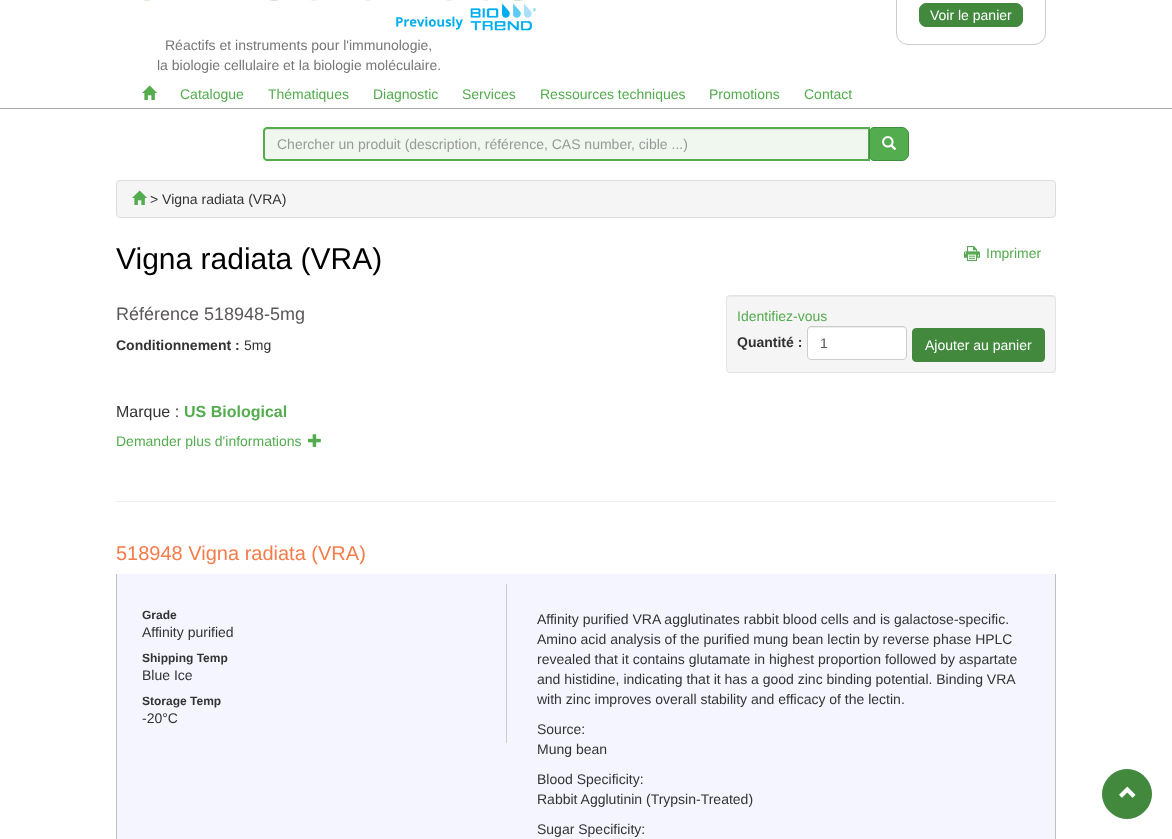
<?xml version="1.0" encoding="UTF-8"?>
<svg xmlns="http://www.w3.org/2000/svg" width="1172" height="839">
    <rect width="100%" height="100%" fill="#FFFFFF"/>
    <rect x="0" y="108" width="1172" height="1" fill="#AAAAAA"/>
    <rect x="896.5" y="-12.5" width="149" height="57" rx="11.5" fill="none" stroke="#CCCCCC"/>
    <rect x="919.5" y="3.5" width="103" height="23" rx="6.5" fill="#42893E" stroke="#42893E"/>
    <text x="930" y="20" font-family="Liberation Sans" font-size="14" fill="#FFFFFF">Voir le panier</text>
    <image x="143" y="0" width="393" height="31" href="img_01.png"/>
    <text x="165" y="50" font-family="Liberation Sans" font-size="14" fill="#777777">Réactifs et instruments pour l'immunologie,</text>
    <text x="157" y="70" font-family="Liberation Sans" font-size="14" fill="#777777">la biologie cellulaire et la biologie moléculaire.</text>
    <image x="142" y="85" width="15" height="15" href="img_02.png"/>
    <text x="180" y="99" font-family="Liberation Sans" font-size="14" fill="#53AC4E">Catalogue</text>
    <text x="268" y="99" font-family="Liberation Sans" font-size="14" fill="#53AC4E">Thématiques</text>
    <text x="373" y="99" font-family="Liberation Sans" font-size="14" fill="#53AC4E">Diagnostic</text>
    <text x="462" y="99" font-family="Liberation Sans" font-size="14" fill="#53AC4E">Services</text>
    <text x="540" y="99" font-family="Liberation Sans" font-size="14" fill="#53AC4E">Ressources techniques</text>
    <text x="709" y="99" font-family="Liberation Sans" font-size="14" fill="#53AC4E">Promotions</text>
    <text x="804" y="99" font-family="Liberation Sans" font-size="14" fill="#53AC4E">Contact</text>
    <path d="M 267 127 H 870 V 161 H 267 C 265 161 263 159 263 157 V 131 C 263 129 265 127 267 127 Z" fill="#EFF7EE"/>
    <path d="M 267 130 H 868 V 129 H 267 L 265 130 V 132 C 265 131 266 130 267 130 Z" fill="#DDE4DC"/>
    <path d="M 267 128 H 869 V 160 H 267 C 265.5 160 264 158.5 264 157 V 131 C 264 129.5 265.5 128 267 128 Z" fill="none" stroke="#53AC4E" stroke-width="2"/>
    <text x="277" y="149" font-family="Liberation Sans" font-size="14" fill="#999999">Chercher un produit (description, référence, CAS number, cible ...)</text>
    <path d="M 874 127.5 H 902 C 905.5 127.5 908.5 130.5 908.5 134 V 154 C 908.5 157.5 905.5 160.5 902 160.5 H 874 C 871.5 160.5 869.5 158.5 869.5 156 V 132 C 869.5 129.5 871.5 127.5 874 127.5 Z" fill="#53AC4E" stroke="#42893E"/>
    <image x="882" y="136" width="15" height="14" href="img_03.png"/>
    <rect x="116.5" y="180.5" width="939" height="37" rx="3.5" fill="#F5F5F5" stroke="#DCDCDC"/>
    <image x="132" y="190" width="15" height="15" href="img_04.png"/>
    <text x="150" y="204" font-family="Liberation Sans" font-size="14" fill="#333333">&gt; Vigna radiata (VRA)</text>
    <text x="116" y="269" font-family="Liberation Sans" font-size="30" fill="#000000">Vigna radiata (VRA)</text>
    <image x="963" y="245" width="18" height="18" href="img_05.png"/>
    <text x="986" y="258" font-family="Liberation Sans" font-size="14" fill="#53AC4E">Imprimer</text>
    <text x="116" y="320" font-family="Liberation Sans" font-size="18" fill="#5C5758">Référence 518948-5mg</text>
    <text x="116" y="350" font-family="Liberation Sans" font-size="14" font-weight="700" fill="#333333">Conditionnement :</text>
    <text x="244" y="350" font-family="Liberation Sans" font-size="14" fill="#333333">5mg</text>
    <text x="116" y="417" font-family="Liberation Sans" font-size="16" fill="#333333">Marque :</text>
    <text x="184" y="417" font-family="Liberation Sans" font-size="16" font-weight="700" fill="#53AC4E">US Biological</text>
    <text x="116" y="446" font-family="Liberation Sans" font-size="14" fill="#53AC4E">Demander plus d'informations</text>
    <image x="308" y="434" width="13" height="13" href="img_06.png"/>
    <rect x="116" y="501" width="940" height="1" fill="#EEEEEE"/>
    <text x="116" y="560" font-family="Liberation Sans" font-size="20" fill="#F57C4B">518948 Vigna radiata (VRA)</text>
    <rect x="117" y="574" width="938" height="265" fill="#F5F5FF"/>
    <rect x="1055" y="574" width="1" height="265" fill="#C1C1C1"/>
    <rect x="116" y="574" width="1" height="265" fill="#C1C1C1"/>
    <rect x="506" y="584" width="1" height="159" fill="#CCCCCC"/>
    <text x="142" y="619" font-family="Liberation Sans" font-size="12" font-weight="700" fill="#333333">Grade</text>
    <text x="142" y="637" font-family="Liberation Sans" font-size="14" fill="#333333">Affinity purified</text>
    <text x="142" y="662" font-family="Liberation Sans" font-size="12" font-weight="700" fill="#333333">Shipping Temp</text>
    <text x="142" y="680" font-family="Liberation Sans" font-size="14" fill="#333333">Blue Ice</text>
    <text x="142" y="705" font-family="Liberation Sans" font-size="12" font-weight="700" fill="#333333">Storage Temp</text>
    <text x="142" y="723" font-family="Liberation Sans" font-size="14" fill="#333333">-20°C</text>
    <text font-family="Liberation Sans" font-size="14" fill="#333333">
        <tspan x="537" y="624">Affinity purified VRA agglutinates rabbit blood cells and is galactose-specific.</tspan>
        <tspan x="537" y="644">Amino acid analysis of the purified mung bean lectin by reverse phase HPLC</tspan>
        <tspan x="537" y="664">revealed that it contains glutamate in highest proportion followed by aspartate</tspan>
        <tspan x="537" y="684">and histidine, indicating that it has a good zinc binding potential. Binding VRA</tspan>
        <tspan x="537" y="704">with zinc improves overall stability and efficacy of the lectin.</tspan>
    </text>
    <text font-family="Liberation Sans" font-size="14" fill="#333333">
        <tspan x="537" y="734">Source:</tspan>
        <tspan x="537" y="754">Mung bean</tspan>
    </text>
    <text font-family="Liberation Sans" font-size="14" fill="#333333">
        <tspan x="537" y="784">Blood Specificity:</tspan>
        <tspan x="537" y="804">Rabbit Agglutinin (Trypsin-Treated)</tspan>
    </text>
    <text x="537" y="834" font-family="Liberation Sans" font-size="14" fill="#333333">Sugar Specificity:</text>
    <rect x="726" y="295" width="330" height="78" rx="4" fill="#F5F5F5"/>
    <path d="M 730 297 H 1052 C 1054 297 1055 298 1055 300 C 1055 298 1054 296 1052 296 H 730 C 728 296 727 298 727 300 C 727 298 728 297 730 297 Z" fill="#E9E9E9"/>
    <rect x="726.5" y="295.5" width="329" height="77" rx="3.5" fill="none" stroke="#E3E3E3"/>
    <text x="737" y="321" font-family="Liberation Sans" font-size="14" fill="#53AC4E">Identifiez-vous</text>
    <text x="737" y="347" font-family="Liberation Sans" font-size="14" font-weight="700" fill="#333333">Quantité :</text>
    <rect x="807" y="326" width="100" height="34" rx="4" fill="#FFFFFF"/>
    <path d="M 811 328 H 903 C 905 328 906 329 906 331 C 906 323 891 327 888 327 H 826 C 823 327 808 323 808 331 C 808 329 809 328 811 328 Z" fill="#ECECEC"/>
    <rect x="807.5" y="326.5" width="99" height="33" rx="3.5" fill="none" stroke="#CCCCCC"/>
    <text x="820" y="348" font-family="Liberation Sans" font-size="14" fill="#555555">1</text>
    <rect x="912.5" y="328.5" width="132" height="33" rx="3.5" fill="#42893E" stroke="#42893E"/>
    <text x="925" y="350" font-family="Liberation Sans" font-size="14" fill="#FFFFFF">Ajouter au panier</text>
    <circle cx="1127" cy="794" r="24.5" fill="#42893E" stroke="#42893E"/>
    <image x="1119" y="786" width="17" height="12" href="img_07.png"/>
</svg>
